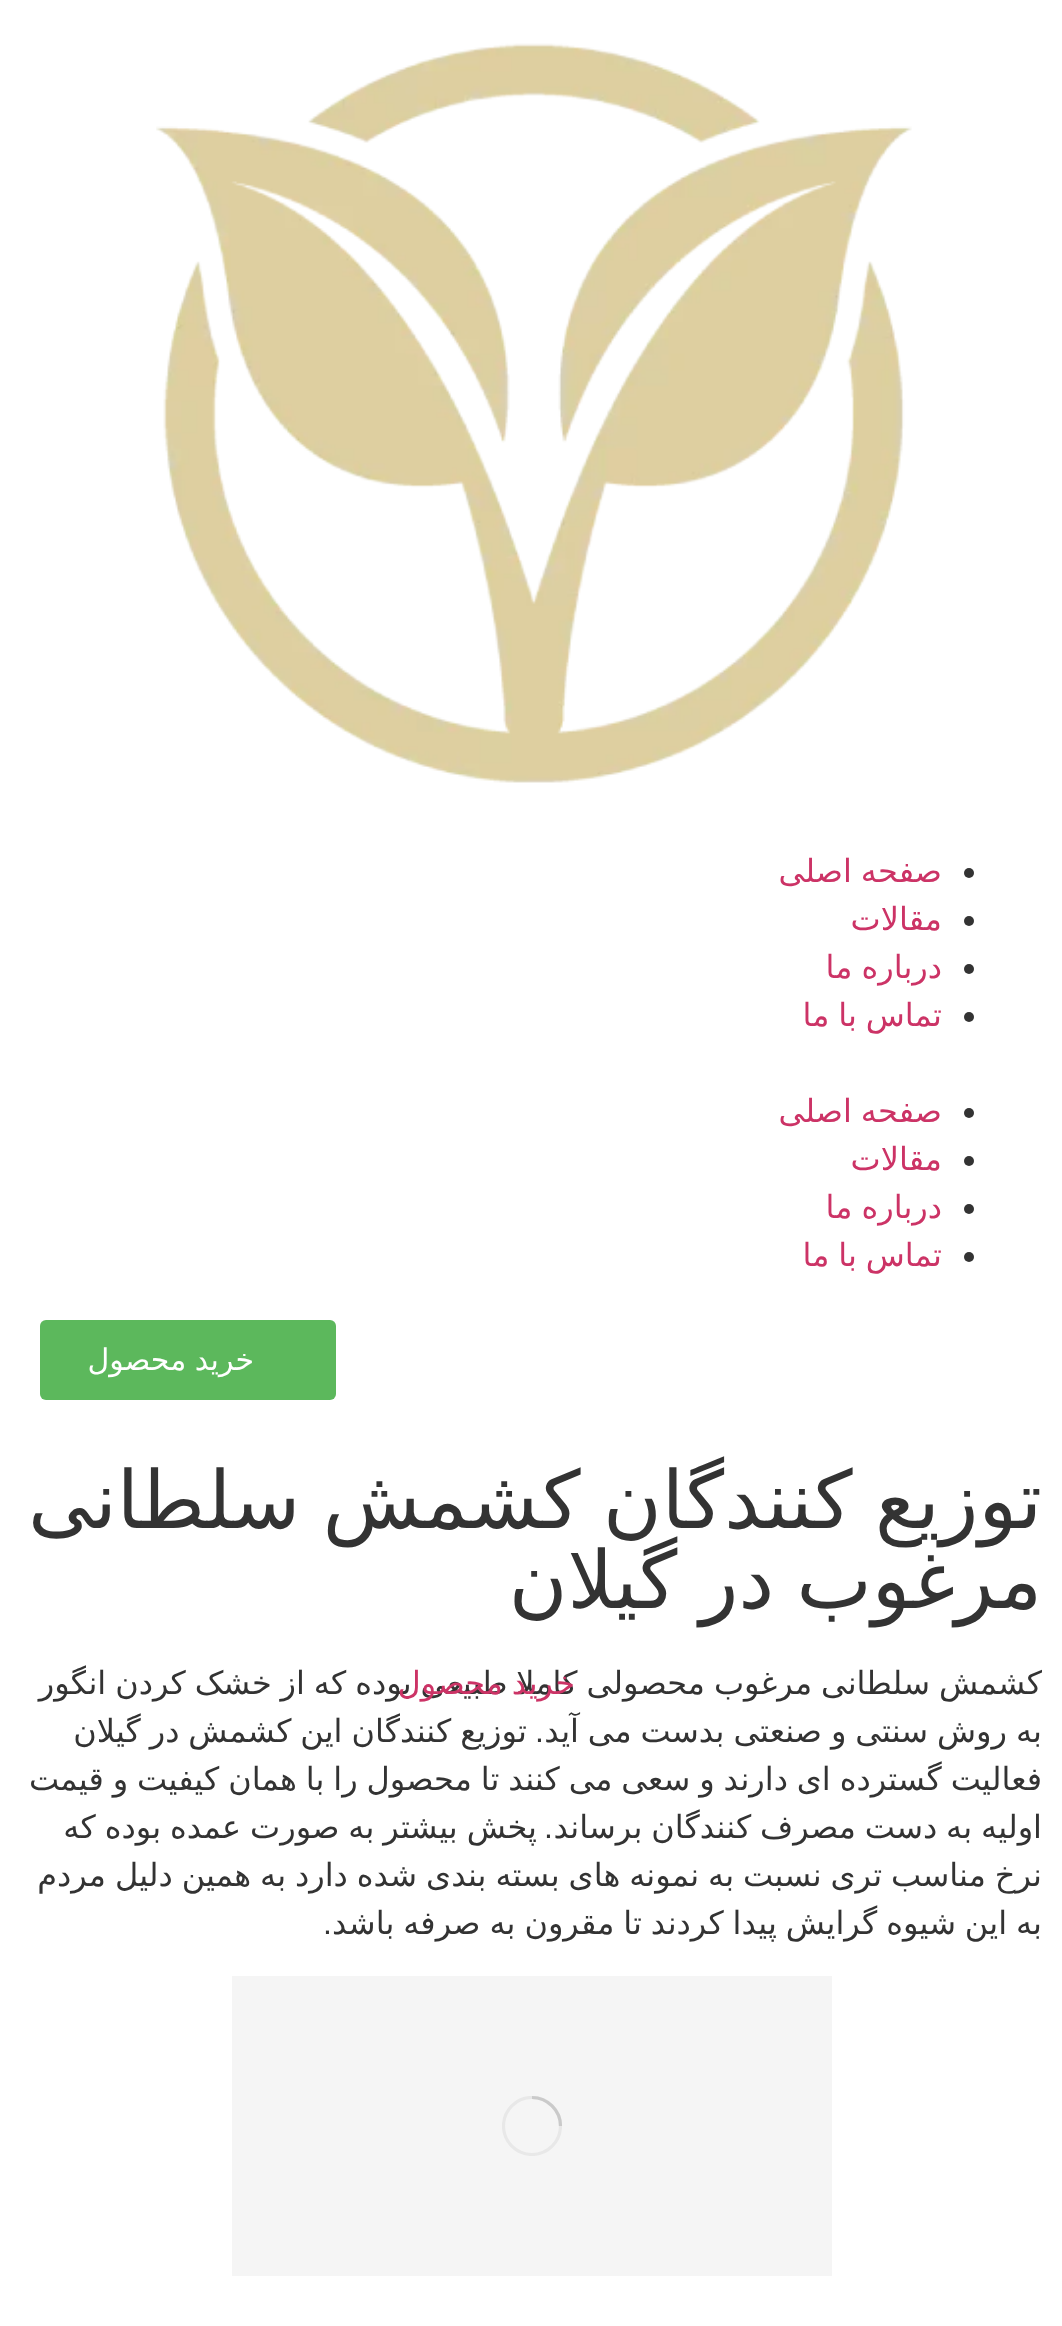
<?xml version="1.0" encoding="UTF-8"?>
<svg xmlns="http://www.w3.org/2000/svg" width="1062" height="2326">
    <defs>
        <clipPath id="clip1"><rect x="502" y="2096" width="60" height="60"/></clipPath>
    </defs>
    <rect width="100%" height="100%" fill="#FFFFFF"/>
    <image x="156" y="43" width="756" height="740" href="img_01.png"/>
    <circle cx="969" cy="873" r="5" fill="#333333"/>
    <text x="942" y="882" word-spacing="-1.25" font-family="DejaVu Sans" font-size="32" direction="rtl" fill="#CC3366">صفحه اصلی</text>
    <circle cx="969" cy="921" r="5" fill="#333333"/>
    <text x="942" y="930" font-family="DejaVu Sans" font-size="32" direction="rtl" fill="#CC3366">مقالات</text>
    <circle cx="969" cy="969" r="5" fill="#333333"/>
    <text x="942" y="978" word-spacing="-1.25" font-family="DejaVu Sans" font-size="32" direction="rtl" fill="#CC3366">درباره ما</text>
    <circle cx="969" cy="1017" r="5" fill="#333333"/>
    <text x="942" y="1026" word-spacing="-1.25" font-family="DejaVu Sans" font-size="32" direction="rtl" fill="#CC3366">تماس با ما</text>
    <circle cx="969" cy="1113" r="5" fill="#333333"/>
    <text x="942" y="1122" word-spacing="-1.25" font-family="DejaVu Sans" font-size="32" direction="rtl" fill="#CC3366">صفحه اصلی</text>
    <circle cx="969" cy="1161" r="5" fill="#333333"/>
    <text x="942" y="1170" font-family="DejaVu Sans" font-size="32" direction="rtl" fill="#CC3366">مقالات</text>
    <circle cx="969" cy="1209" r="5" fill="#333333"/>
    <text x="942" y="1218" word-spacing="-1.25" font-family="DejaVu Sans" font-size="32" direction="rtl" fill="#CC3366">درباره ما</text>
    <circle cx="969" cy="1257" r="5" fill="#333333"/>
    <text x="942" y="1266" word-spacing="-1.25" font-family="DejaVu Sans" font-size="32" direction="rtl" fill="#CC3366">تماس با ما</text>
    <rect x="40" y="1320" width="296" height="80" rx="6" fill="#5CB85C"/>
    <text x="254" y="1370" word-spacing="-1" font-family="DejaVu Sans" font-size="30" direction="rtl" fill="#FFFFFF">خرید محصول</text>
    <text font-family="DejaVu Sans" font-size="80" direction="rtl" fill="#333333">
        <tspan x="1042" y="1528" word-spacing="-3">توزیع کنندگان کشمش سلطانی</tspan>
        <tspan x="1042" y="1608" word-spacing="-3">مرغوب در گیلان</tspan>
    </text>
    <text font-family="DejaVu Sans" font-size="32" direction="rtl" fill="#333333">
        <tspan x="1042" y="1694" word-spacing="-1.25">کشمش سلطانی مرغوب محصولی کاملا طبیعی بوده که از خشک کردن انگور</tspan>
        <tspan x="1042" y="1742" word-spacing="-1.25">به روش سنتی و صنعتی بدست می آید</tspan>
    </text>
    <text x="544" y="1742" font-family="Liberation Sans" font-size="32" direction="rtl" fill="#333333">.</text>
    <text x="527" y="1742" word-spacing="-1.25" font-family="DejaVu Sans" font-size="32" direction="rtl" fill="#333333">توزیع کنندگان این کشمش در گیلان</text>
    <text font-family="DejaVu Sans" font-size="32" direction="rtl" fill="#333333">
        <tspan x="1042" y="1790" word-spacing="-1.25">فعالیت گسترده ای دارند و سعی می کنند تا محصول را با همان کیفیت و قیمت</tspan>
        <tspan x="1042" y="1838" word-spacing="-1.25">اولیه به دست مصرف کنندگان برساند</tspan>
    </text>
    <text x="553" y="1838" font-family="Liberation Sans" font-size="32" direction="rtl" fill="#333333">.</text>
    <text x="537" y="1838" word-spacing="-1.25" font-family="DejaVu Sans" font-size="32" direction="rtl" fill="#333333">پخش بیشتر به صورت عمده بوده که</text>
    <text font-family="DejaVu Sans" font-size="32" direction="rtl" fill="#333333">
        <tspan x="1042" y="1886" word-spacing="-1.25">نرخ مناسب تری نسبت به نمونه های بسته بندی شده دارد به همین دلیل مردم</tspan>
        <tspan x="1042" y="1934" word-spacing="-1.25">به این شیوه گرایش پیدا کردند تا مقرون به صرفه باشد</tspan>
    </text>
    <text x="332" y="1934" font-family="Liberation Sans" font-size="32" direction="rtl" fill="#333333">.</text>
    <rect x="232" y="1976" width="600" height="300" fill="#F5F5F5"/>
    <g clip-path="url(#clip1)">
        <circle cx="532" cy="2126" r="28.5" fill="none" stroke="#E8E8E8" stroke-width="3.2"/>
    </g>
    <path d="M 560.5 2126 C 560.5 2110.5 547.5 2097.5 532 2097.5" fill="none" stroke="#CACACA" stroke-width="3.2"/>
    <text x="575" y="1694" word-spacing="-1.25" font-family="DejaVu Sans" font-size="32" direction="rtl" fill="#CC3366">خرید محصول</text>
</svg>
